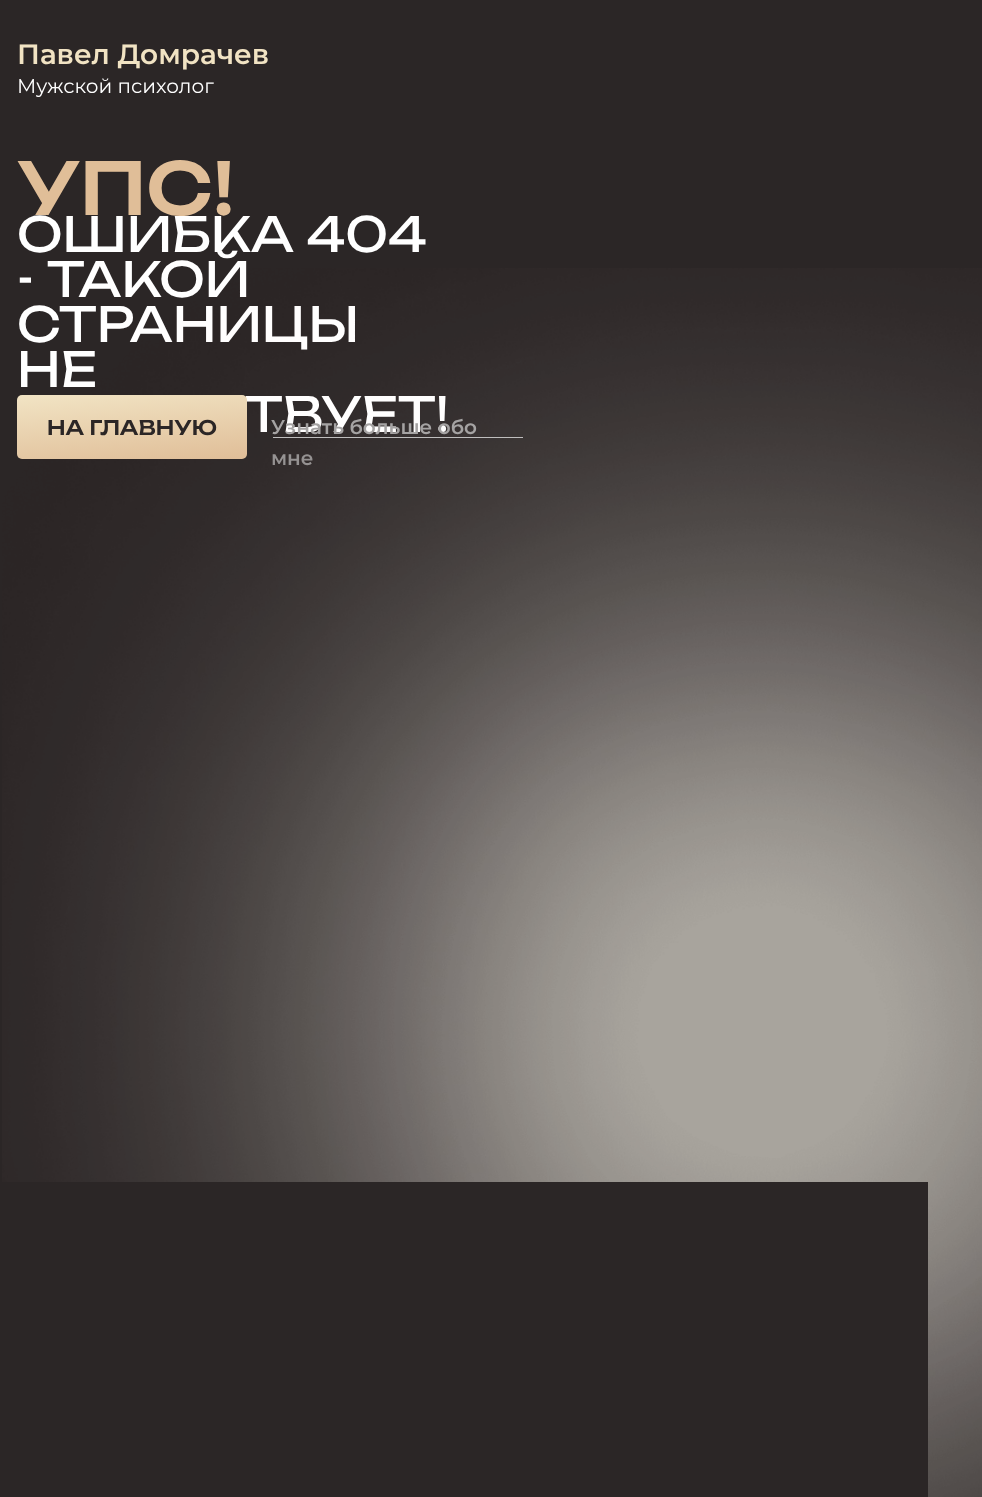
<?xml version="1.0" encoding="UTF-8"?>
<svg xmlns="http://www.w3.org/2000/svg" width="982" height="1497">
    <defs>
        <linearGradient id="g1" gradientUnits="userSpaceOnUse" x1="128" y1="385" x2="136" y2="469"><stop offset="0.02" stop-color="#F1E3C3"/><stop offset="1" stop-color="#E0BE98"/></linearGradient>
    </defs>
    <rect width="100%" height="100%" fill="#2B2626"/>
    <text x="17" y="64" font-family="Montserrat" font-size="28" font-weight="600" fill="#F1E3C3">Павел Домрачев</text>
    <text x="17" y="93" font-family="Montserrat" font-size="20" fill="#FFFFFF">Мужской психолог</text>
    <text x="17" y="215" font-family="Unbounded" font-size="72" font-weight="500" fill="#E0BE98">УПС!</text>
    <text font-family="Unbounded" font-size="48" fill="#FFFFFF">
        <tspan x="17" y="252" word-spacing="2">ОШИБКА 404</tspan>
        <tspan x="17" y="297" word-spacing="2">- ТАКОЙ</tspan>
        <tspan x="17" y="342">СТРАНИЦЫ</tspan>
        <tspan x="17" y="387">НЕ</tspan>
    </text>
    <text x="245" y="432" font-family="Unbounded" font-size="48" fill="#FFFFFF">ТВУЕТ!</text>
    <image x="2" y="268" width="980" height="1229" href="img_01.png"/>
    <rect x="17" y="395" width="230" height="64" rx="5" fill="url(#g1)"/>
    <text x="47" y="435" word-spacing="1" font-family="Unbounded" font-size="20" font-weight="500" fill="#2B2626">НА ГЛАВНУЮ</text>
    <text x="271" y="434" font-family="Montserrat" font-size="20" font-weight="600" fill="#A5A3A3">Узнать больше обо</text>
    <text x="271" y="465" font-family="Montserrat" font-size="20" font-weight="600" fill="#959292">мне</text>
    <rect x="273" y="437" width="250" height="1" fill="#BFBEBE"/>
    <rect x="2" y="1182" width="926" height="315" fill="#2B2626"/>
</svg>
